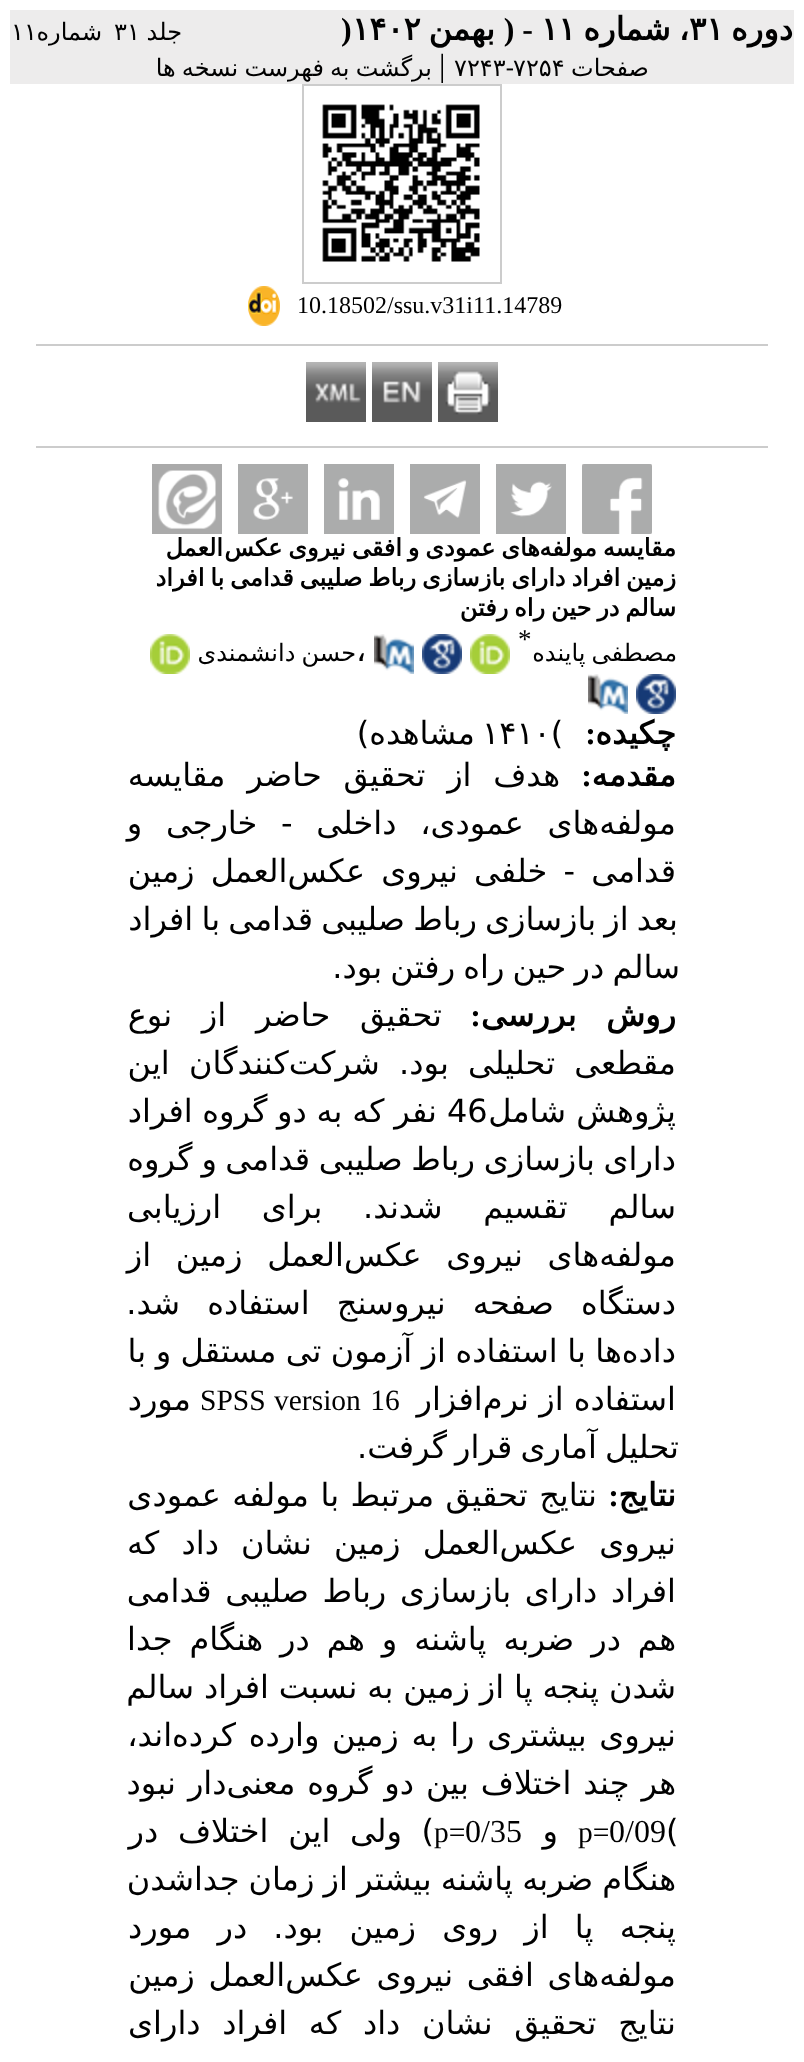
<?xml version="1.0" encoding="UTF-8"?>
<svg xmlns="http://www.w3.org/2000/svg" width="804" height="2062">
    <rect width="100%" height="100%" fill="#FFFFFF"/>
    <rect x="10" y="10" width="784" height="74" fill="#EDECEC"/>
    <text x="793" y="40" font-family="DejaVu Sans" font-size="32" font-weight="700" direction="rtl" fill="#000000">دوره</text>
    <text x="689" y="40" font-family="DejaVu Sans" font-size="32" font-weight="700" fill="#000000">۳۱</text>
    <text x="689" y="40" word-spacing="-2" font-family="DejaVu Sans" font-size="32" font-weight="700" direction="rtl" fill="#000000">، شماره</text>
    <text x="541" y="40" font-family="DejaVu Sans" font-size="32" font-weight="700" fill="#000000">۱۱</text>
    <text x="533" y="40" font-family="Liberation Serif" font-size="32" font-weight="700" direction="rtl" fill="#000000">- (</text>
    <text x="495" y="40" font-family="DejaVu Sans" font-size="32" font-weight="700" direction="rtl" fill="#000000">بهمن</text>
    <text x="352" y="40" font-family="DejaVu Sans" font-size="32" font-weight="700" fill="#000000">۱۴۰۲</text>
    <text x="341" y="40" font-family="Liberation Serif" font-size="32" font-weight="700" fill="#000000">)</text>
    <text x="182" y="40" font-family="DejaVu Sans" font-size="24" direction="rtl" fill="#000000">جلد</text>
    <text x="114" y="40" font-family="DejaVu Sans" font-size="24" fill="#000000">۳۱</text>
    <text x="102" y="40" font-family="DejaVu Sans" font-size="24" direction="rtl" fill="#000000">شماره</text>
    <text x="11" y="40" font-family="DejaVu Sans" font-size="24" fill="#000000">۱۱</text>
    <text x="649" y="76" font-family="DejaVu Sans" font-size="24" direction="rtl" fill="#000000">صفحات</text>
    <text x="513" y="76" font-family="DejaVu Sans" font-size="24" fill="#000000">۷۲۵۴</text>
    <text x="454" y="76" font-family="DejaVu Sans" font-size="24" fill="#000000">۷۲۴۳-</text>
    <text x="439" y="76" font-family="Liberation Serif" font-size="32" fill="#000000">|</text>
    <text x="432" y="76" word-spacing="-1.5" font-family="DejaVu Sans" font-size="24" direction="rtl" fill="#000000">برگشت به فهرست نسخه ها</text>
    <rect x="303" y="85" width="198" height="198" fill="none" stroke="#CCCCCC" stroke-width="2"/>
    <image x="322" y="104" width="158" height="158" href="img_01.png"/>
    <text x="297" y="313" font-family="Liberation Serif" font-size="24" fill="#000000">10.18502/ssu.v31i11.14789</text>
    <image x="248" y="286" width="32" height="40" href="img_02.png"/>
    <rect x="36" y="344" width="732" height="2" fill="#CCCCCC"/>
    <image x="438" y="362" width="60" height="60" href="img_03.png"/>
    <image x="372" y="362" width="60" height="60" href="img_04.png"/>
    <image x="306" y="362" width="60" height="60" href="img_05.png"/>
    <rect x="36" y="446" width="732" height="2" fill="#CCCCCC"/>
    <image x="582" y="464" width="70" height="70" href="img_06.png"/>
    <image x="496" y="464" width="70" height="70" href="img_07.png"/>
    <image x="410" y="464" width="70" height="70" href="img_08.png"/>
    <image x="324" y="464" width="70" height="70" href="img_09.png"/>
    <image x="238" y="464" width="70" height="70" href="img_10.png"/>
    <image x="152" y="464" width="70" height="70" href="img_11.png"/>
    <text x="540" y="556" word-spacing="-1.75" font-family="DejaVu Sans" font-size="24" font-weight="700" direction="rtl" fill="#000000">های عمودی و افقی نیروی عکس</text>
    <text x="676" y="556" word-spacing="-1.75" font-family="DejaVu Sans" font-size="24" font-weight="700" direction="rtl" fill="#000000">مقایسه مولفه</text>
    <text x="223" y="556" font-family="DejaVu Sans" font-size="24" font-weight="700" direction="rtl" fill="#000000">العمل</text>
    <text font-family="DejaVu Sans" font-size="24" font-weight="700" direction="rtl" fill="#000000">
        <tspan x="676" y="586" word-spacing="-1.75">زمین افراد دارای بازسازی رباط صلیبی قدامی با افراد</tspan>
        <tspan x="676" y="616" word-spacing="-1.75">سالم در حین راه رفتن</tspan>
    </text>
    <text x="677" y="661" word-spacing="-1.5" font-family="DejaVu Sans" font-size="24" direction="rtl" fill="#000000">مصطفی پاینده</text>
    <text x="518" y="648" font-family="Liberation Serif" font-size="27" fill="#000000">*</text>
    <image x="470" y="634" width="40" height="40" href="img_12.png"/>
    <image x="422" y="634" width="40" height="40" href="img_13.png"/>
    <image x="374" y="634" width="40" height="40" href="img_14.png"/>
    <text x="356" y="661" font-family="DejaVu Sans" font-size="32" fill="#000000">،</text>
    <text x="356" y="661" word-spacing="-1.5" font-family="DejaVu Sans" font-size="24" direction="rtl" fill="#000000">حسن دانشمندی</text>
    <image x="150" y="634" width="40" height="40" href="img_12.png"/>
    <image x="636" y="674" width="40" height="40" href="img_13.png"/>
    <image x="588" y="674" width="40" height="40" href="img_14.png"/>
    <text x="676" y="744" font-family="DejaVu Sans" font-size="32" font-weight="700" direction="rtl" fill="#000000">چکیده</text>
    <text x="596" y="744" font-family="Liberation Serif" font-size="32" font-weight="700" direction="rtl" fill="#000000">:</text>
    <text x="482" y="744" font-family="DejaVu Sans" font-size="32" fill="#000000">۱۴۱۰(</text>
    <text x="475" y="744" font-family="DejaVu Sans" font-size="32" direction="rtl" fill="#000000">مشاهده)</text>
    <text x="676" y="786" font-family="DejaVu Sans" font-size="32" font-weight="700" direction="rtl" fill="#000000">مقدمه</text>
    <text x="592" y="786" font-family="Liberation Serif" font-size="32" font-weight="700" direction="rtl" fill="#000000">:</text>
    <text x="560" y="786" word-spacing="11.5" font-family="DejaVu Sans" font-size="32" direction="rtl" fill="#000000">هدف از تحقیق ‌حاضر</text>
    <text x="247" y="786" word-spacing="11.5" font-family="DejaVu Sans" font-size="32" direction="rtl" fill="#000000">‌ مقایسه‌</text>
    <text font-family="DejaVu Sans" font-size="32" direction="rtl" fill="#000000">
        <tspan x="676" y="834" word-spacing="13.5">مولفه‌های عمودی، داخلی - خارجی و</tspan>
        <tspan x="676" y="882" word-spacing="6">قدامی - خلفی نیروی عکس‌العمل زمین</tspan>
    </text>
    <text x="678" y="930" word-spacing="-2" font-family="DejaVu Sans" font-size="32" direction="rtl" fill="#000000">بعد از بازسازی رباط صلیبی قدامی با افراد</text>
    <text x="680" y="978" word-spacing="-2" font-family="DejaVu Sans" font-size="32" direction="rtl" fill="#000000">سالم در حین راه رفتن بود.</text>
    <text x="676" y="1026" word-spacing="19.5" font-family="DejaVu Sans" font-size="32" font-weight="700" direction="rtl" fill="#000000">روش بررسی</text>
    <text x="481" y="1026" font-family="Liberation Serif" font-size="32" font-weight="700" direction="rtl" fill="#000000">:</text>
    <text x="442" y="1026" word-spacing="19.5" font-family="DejaVu Sans" font-size="32" direction="rtl" fill="#000000">تحقیق حاضر از‌ نوع</text>
    <text font-family="DejaVu Sans" font-size="32" direction="rtl" fill="#000000">
        <tspan x="676" y="1074" word-spacing="9">مقطعی تحلیلی بود. شرکت‌کنندگان این</tspan>
        <tspan x="676" y="1122">پژوهش شامل</tspan>
    </text>
    <text x="447" y="1122" font-family="DejaVu Sans" font-size="32" fill="#000000">46</text>
    <text x="437" y="1122" word-spacing="-0.5" font-family="DejaVu Sans" font-size="32" direction="rtl" fill="#000000">نفر که به دو گروه افراد</text>
    <text x="676" y="1170" word-spacing="-1.5" font-family="DejaVu Sans" font-size="32" direction="rtl" fill="#000000">دارای بازسازی رباط صلیبی قدامی</text>
    <text x="217" y="1170" word-spacing="-1" font-family="DejaVu Sans" font-size="32" direction="rtl" fill="#000000">و گروه</text>
    <text font-family="DejaVu Sans" font-size="32" direction="rtl" fill="#000000">
        <tspan x="676" y="1218" word-spacing="30.5">سالم تقسیم شدند. برای ارزیابی</tspan>
        <tspan x="676" y="1266" word-spacing="14.5">مولفه‌های نیروی عکس‌العمل زمین از</tspan>
        <tspan x="676" y="1314" word-spacing="17">دستگاه صفحه نیروسنج استفاده شد.</tspan>
        <tspan x="676" y="1362" word-spacing="-0.75">داده‌ها با استفاده از آزمون تی مستقل و با</tspan>
        <tspan x="676" y="1410">استفاده از نرم‌افزار</tspan>
    </text>
    <text x="274" y="1410" word-spacing="2" font-family="Liberation Serif" font-size="29.5" fill="#000000">version 16</text>
    <text x="200" y="1410" font-family="Liberation Serif" font-size="29.5" fill="#000000">SPSS</text>
    <text x="191" y="1410" font-family="DejaVu Sans" font-size="32" direction="rtl" fill="#000000">مورد</text>
    <text x="679" y="1458" word-spacing="-2" font-family="DejaVu Sans" font-size="32" direction="rtl" fill="#000000">تحلیل آماری قرار گرفت.</text>
    <text x="676" y="1506" font-family="DejaVu Sans" font-size="32" font-weight="700" direction="rtl" fill="#000000">نتایج</text>
    <text x="619" y="1506" font-family="Liberation Serif" font-size="32" font-weight="700" direction="rtl" fill="#000000">:</text>
    <text x="597" y="1506" word-spacing="1.25" font-family="DejaVu Sans" font-size="32" direction="rtl" fill="#000000">نتایج تحقیق مرتبط با مولفه عمودی</text>
    <text font-family="DejaVu Sans" font-size="32" direction="rtl" fill="#000000">
        <tspan x="676" y="1554" word-spacing="12">نیروی عکس‌العمل زمین نشان داد که</tspan>
        <tspan x="676" y="1602" word-spacing="3.5">افراد دارای بازسازی رباط صلیبی قدامی</tspan>
        <tspan x="676" y="1650" word-spacing="6.75">هم در ضربه پاشنه و هم در هنگام جدا</tspan>
        <tspan x="676" y="1698" word-spacing="-0.25">شدن پنجه پا از زمین به نسبت افراد سالم</tspan>
        <tspan x="676" y="1746" word-spacing="2.5">نیروی بیشتری را به زمین وارده کرده‌اند،</tspan>
        <tspan x="676" y="1794" word-spacing="1.75">هر چند اختلاف بین دو گروه معنی‌دار نبود</tspan>
    </text>
    <text x="666" y="1842" font-family="DejaVu Sans" font-size="32" fill="#000000">(</text>
    <text x="609" y="1842" font-family="Liberation Serif" font-size="32" fill="#000000">0/09</text>
    <text x="578" y="1842" font-family="Liberation Serif" font-size="29.5" fill="#000000">p=</text>
    <text x="558" y="1842" font-family="DejaVu Sans" font-size="32" direction="rtl" fill="#000000">و</text>
    <text x="465" y="1842" font-family="Liberation Serif" font-size="32" fill="#000000">0/35</text>
    <text x="434" y="1842" font-family="Liberation Serif" font-size="29.5" fill="#000000">p=</text>
    <text x="434" y="1842" word-spacing="9.5" font-family="DejaVu Sans" font-size="32" direction="rtl" fill="#000000">) ولی این اختلاف در</text>
    <text font-family="DejaVu Sans" font-size="32" direction="rtl" fill="#000000">
        <tspan x="676" y="1890" word-spacing="-1">هنگام ضربه پاشنه بیشتر از زمان جداشدن</tspan>
        <tspan x="676" y="1938" word-spacing="16">پنجه پا از روی زمین بود. در مورد</tspan>
        <tspan x="676" y="1986" word-spacing="3.5">مولفه‌های افقی نیروی عکس‌العمل زمین</tspan>
        <tspan x="676" y="2034" word-spacing="11.5">نتایج تحقیق نشان داد که افراد دارای</tspan>
    </text>
</svg>
